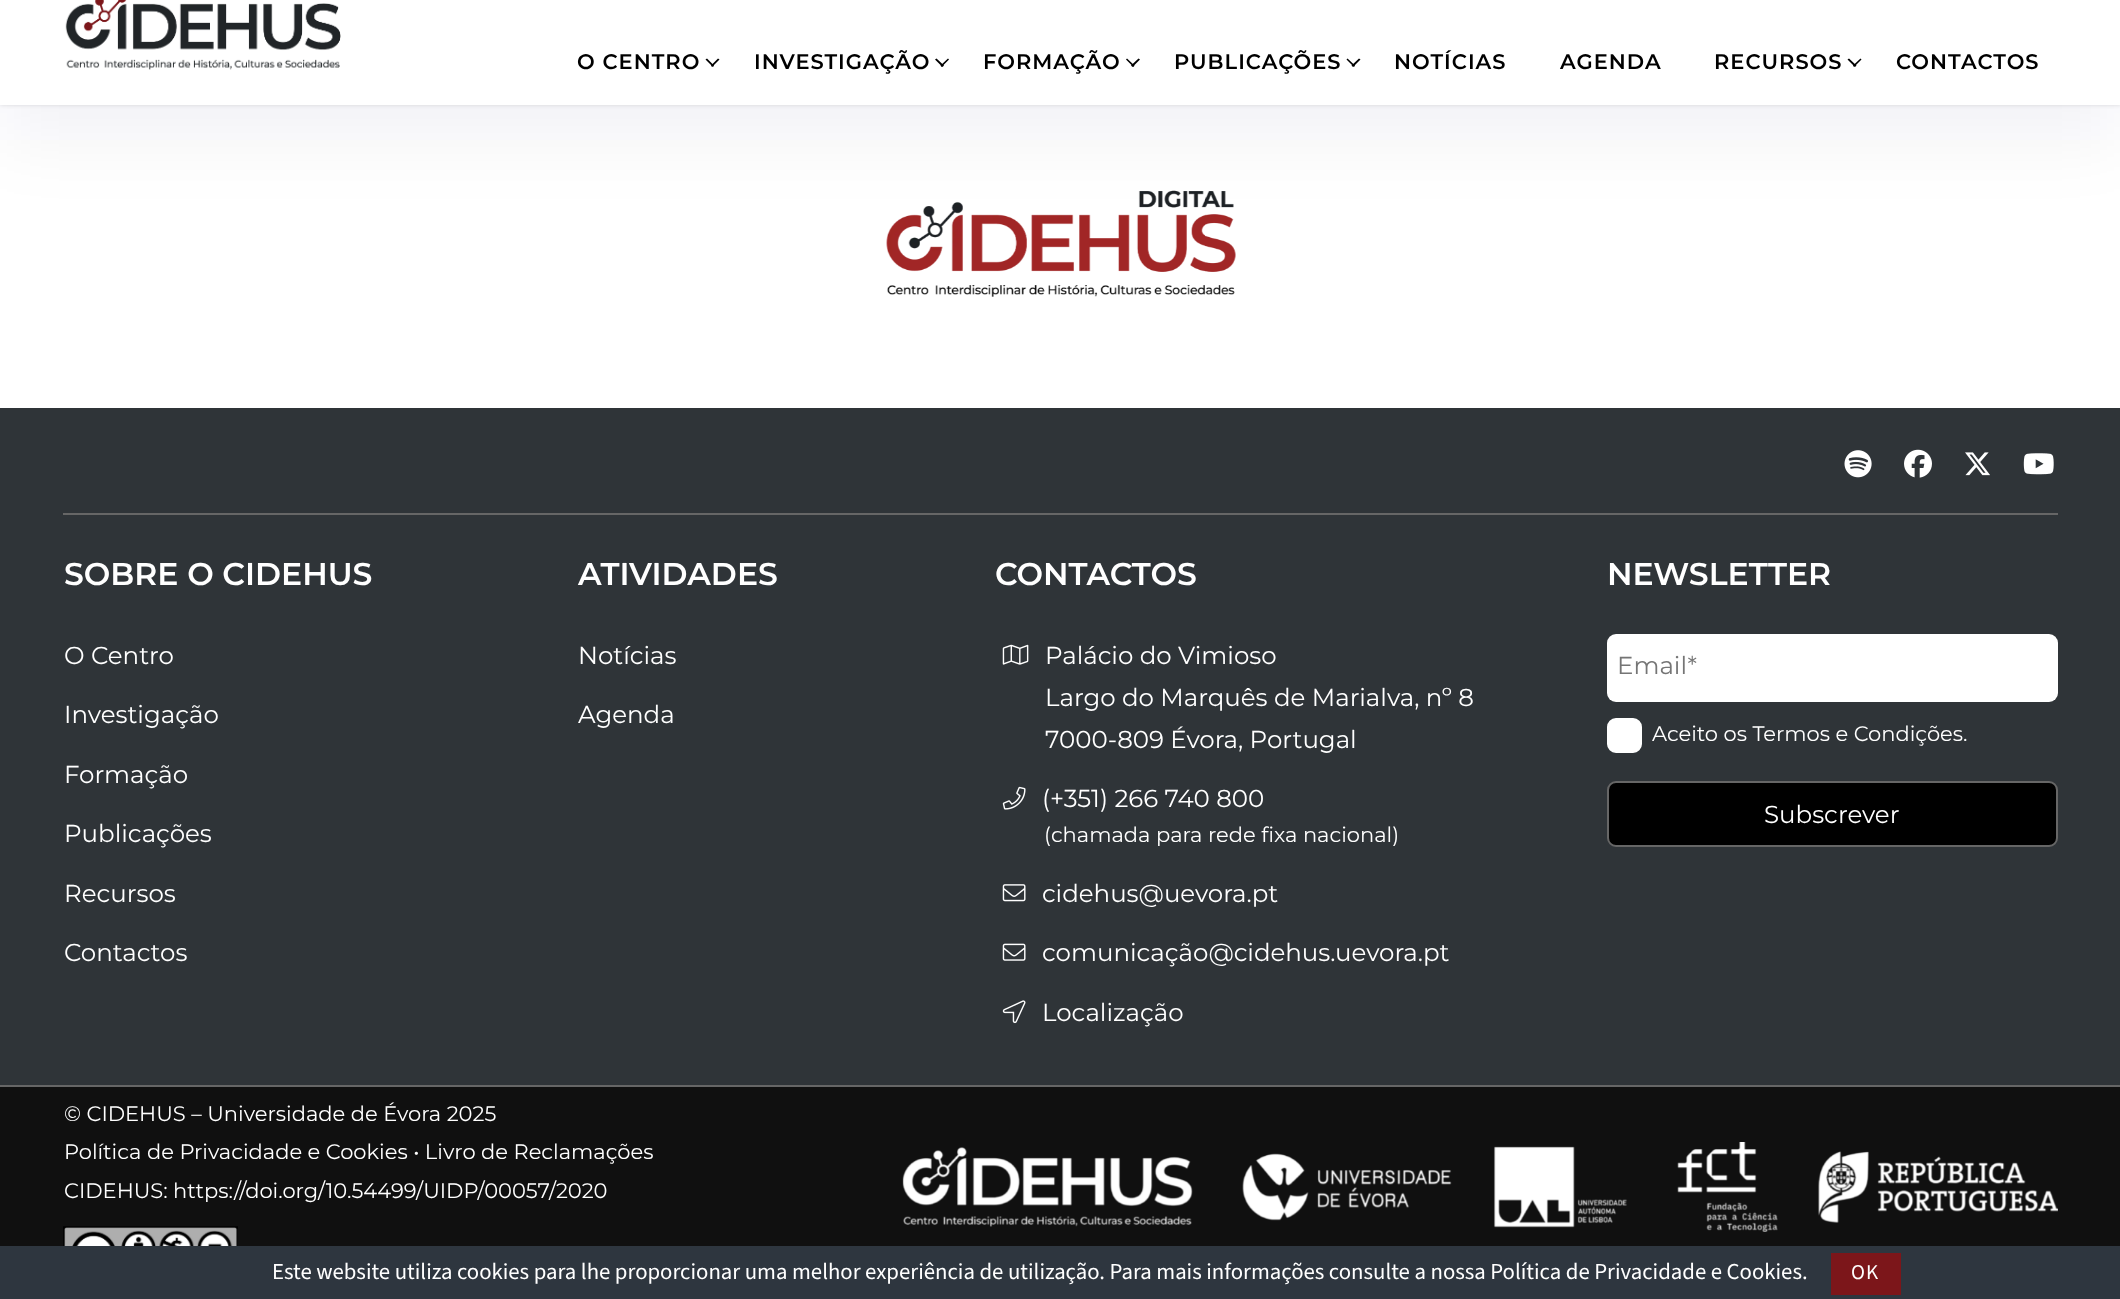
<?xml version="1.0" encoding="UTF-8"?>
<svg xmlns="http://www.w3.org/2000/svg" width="2120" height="1299">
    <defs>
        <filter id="blur1" x="-50%" y="-200%" width="200%" height="500%"><feGaussianBlur stdDeviation="2"/></filter>
        <filter id="blur2" x="-50%" y="-200%" width="200%" height="500%"><feGaussianBlur stdDeviation="35"/></filter>
    </defs>
    <rect width="100%" height="100%" fill="#FFFFFF"/>
    <rect x="0" y="-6" width="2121" height="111" fill="#000000" fill-opacity="0.13" filter="url(#blur1)"/>
    <image x="886" y="190" width="350" height="107" href="img_02.png"/>
    <rect x="0" y="-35" width="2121" height="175" fill="#0A2141" fill-opacity="0.05" filter="url(#blur2)"/>
    <rect x="0" y="0" width="2120" height="105" fill="#FFFFFF"/>
    <image x="65" y="0" width="276" height="70" href="img_01.png"/>
    <text x="577" y="69" font-family="Montserrat" font-size="21" font-weight="600" letter-spacing="1" fill="#000000">O CENTRO</text>
    <path d="M 707 58.5 L 714 65.5 L 713 67 L 705.5 59.5 Z" fill="#000000"/>
    <path d="M 711 65.5 L 718 58.5 L 719.5 59.5 L 712 67 Z" fill="#000000"/>
    <text x="754" y="69" font-family="Montserrat" font-size="21" font-weight="600" letter-spacing="1" fill="#000000">INVESTIGAÇÃO</text>
    <path d="M 936.5 58.5 L 944 65.5 L 942.5 67 L 935 59.5 Z" fill="#000000"/>
    <path d="M 940.5 65.5 L 948 58.5 L 949 59.5 L 941.5 67 Z" fill="#000000"/>
    <text x="983" y="69" font-family="Montserrat" font-size="21" font-weight="600" letter-spacing="1" fill="#000000">FORMAÇÃO</text>
    <path d="M 1127 58.5 L 1134.5 65.5 L 1133.5 67 L 1126 59.5 Z" fill="#000000"/>
    <path d="M 1131 65.5 L 1138.5 58.5 L 1140 59.5 L 1132.5 67 Z" fill="#000000"/>
    <text x="1174" y="69" font-family="Montserrat" font-size="21" font-weight="600" letter-spacing="1" fill="#000000">PUBLICAÇÕES</text>
    <path d="M 1347.5 58.5 L 1355 65.5 L 1354 67 L 1346.5 59.5 Z" fill="#000000"/>
    <path d="M 1351.5 65.5 L 1359 58.5 L 1360.5 59.5 L 1353 67 Z" fill="#000000"/>
    <text x="1394" y="69" font-family="Montserrat" font-size="21" font-weight="600" letter-spacing="1" fill="#000000">NOTÍCIAS</text>
    <text x="1560" y="69" font-family="Montserrat" font-size="21" font-weight="600" letter-spacing="1" fill="#000000">AGENDA</text>
    <text x="1714" y="69" font-family="Montserrat" font-size="21" font-weight="600" letter-spacing="1" fill="#000000">RECURSOS</text>
    <path d="M 1849 58.5 L 1856.5 65.5 L 1855 67 L 1847.5 59.5 Z" fill="#000000"/>
    <path d="M 1853 65.5 L 1860.5 58.5 L 1861.5 59.5 L 1854 67 Z" fill="#000000"/>
    <text x="1896" y="69" font-family="Montserrat" font-size="21" font-weight="600" letter-spacing="1" fill="#000000">CONTACTOS</text>
    <rect x="0" y="408" width="2120" height="677" fill="#2F3438"/>
    <rect x="63" y="513" width="1995" height="2" fill="#666666"/>
    <image x="1844" y="450" width="28" height="28" href="img_03.png"/>
    <image x="1904" y="449" width="28" height="29" href="img_04.png"/>
    <image x="1965" y="452" width="25" height="24" href="img_05.png"/>
    <image x="2023" y="453" width="31" height="22" href="img_06.png"/>
    <text x="64" y="585" font-family="Montserrat" font-size="31.5" font-weight="600" fill="#FFFFFF">SOBRE O CIDEHUS</text>
    <text x="64" y="664" font-family="Montserrat" font-size="24.5" fill="#FFFFFF">O Centro</text>
    <text x="64" y="723" font-family="Montserrat" font-size="24.5" fill="#FFFFFF">Investigação</text>
    <text x="64" y="783" font-family="Montserrat" font-size="24.5" fill="#FFFFFF">Formação</text>
    <text x="64" y="842" font-family="Montserrat" font-size="24.5" fill="#FFFFFF">Publicações</text>
    <text x="64" y="902" font-family="Montserrat" font-size="24.5" fill="#FFFFFF">Recursos</text>
    <text x="64" y="961" font-family="Montserrat" font-size="24.5" fill="#FFFFFF">Contactos</text>
    <text x="578" y="585" font-family="Montserrat" font-size="31.5" font-weight="600" fill="#FFFFFF">ATIVIDADES</text>
    <text x="578" y="664" font-family="Montserrat" font-size="24.5" fill="#FFFFFF">Notícias</text>
    <text x="578" y="723" font-family="Montserrat" font-size="24.5" fill="#FFFFFF">Agenda</text>
    <text x="995" y="585" font-family="Montserrat" font-size="31.5" font-weight="600" fill="#FFFFFF">CONTACTOS</text>
    <image x="1002" y="644" width="27" height="21" href="img_07.png"/>
    <text font-family="Montserrat" font-size="24.5" fill="#FFFFFF">
        <tspan x="1045" y="664">Palácio do Vimioso</tspan>
        <tspan x="1045" y="706">Largo do Marquês de Marialva, nº 8</tspan>
        <tspan x="1045" y="748">7000-809 Évora, Portugal</tspan>
    </text>
    <image x="1002" y="786" width="24" height="24" href="img_08.png"/>
    <text x="1042" y="807" font-family="Montserrat" font-size="24.5" fill="#FFFFFF">(+351) 266 740 800</text>
    <text x="1044" y="842" font-family="Montserrat" font-size="21" fill="#FFFFFF">(chamada para rede fixa nacional)</text>
    <image x="1002" y="884" width="24" height="18" href="img_09.png"/>
    <text x="1042" y="902" font-family="Montserrat" font-size="24.5" fill="#FFFFFF">cidehus@uevora.pt</text>
    <image x="1002" y="943" width="24" height="18" href="img_10.png"/>
    <text x="1042" y="961" font-family="Montserrat" font-size="24.5" fill="#FFFFFF">comunicação@cidehus.uevora.pt</text>
    <image x="1002" y="1000" width="24" height="24" href="img_11.png"/>
    <text x="1042" y="1021" font-family="Montserrat" font-size="24.5" fill="#FFFFFF">Localização</text>
    <text x="1607" y="585" font-family="Montserrat" font-size="31.5" font-weight="600" fill="#FFFFFF">NEWSLETTER</text>
    <rect x="1607" y="634" width="451" height="68" rx="9" fill="#FFFFFF"/>
    <text x="1617" y="674" font-family="Montserrat" font-size="24.5" fill="#757575">Email*</text>
    <rect x="1608" y="719" width="33" height="33" rx="8" fill="#FFFFFF" stroke="#FFFFFF" stroke-width="2"/>
    <text x="1652" y="741" font-family="Montserrat" font-size="21" fill="#FFFFFF">Aceito os Termos e Condições.</text>
    <rect x="1608" y="782" width="449" height="64" rx="8" fill="#000000" stroke="#666666" stroke-width="2"/>
    <text x="1764" y="823" font-family="Montserrat" font-size="24.5" fill="#FFFFFF">Subscrever</text>
    <rect x="0" y="1087" width="2120" height="159" fill="#101010"/>
    <rect x="0" y="1085" width="2120" height="2" fill="#666666"/>
    <text font-family="Montserrat" font-size="21" fill="#FFFFFF">
        <tspan x="64" y="1121">© CIDEHUS – Universidade de Évora 2025</tspan>
        <tspan x="64" y="1159">Política de Privacidade e Cookies • Livro de Reclamações</tspan>
        <tspan x="64" y="1198">CIDEHUS: https://doi.org/10.54499/UIDP/00057/2020</tspan>
    </text>
    <image x="63" y="1226" width="175" height="20" href="img_12.png"/>
    <image x="902" y="1142" width="1156" height="90" href="img_13.png"/>
    <rect x="0" y="1246" width="2120" height="53" fill="#2E363F"/>
    <text x="272" y="1279" font-family="'Source Sans 3'" font-size="22.75" fill="#FFFFFF">Este website utiliza cookies para lhe proporcionar uma melhor experiência de utilização. Para mais informações consulte a nossa Política de Privacidade e Cookies.</text>
    <rect x="1831" y="1253" width="70" height="42" fill="#7C161A"/>
    <text x="1851" y="1279" font-family="'Source Sans 3'" font-size="21" letter-spacing="1" fill="#FFFFFF">OK</text>
</svg>
